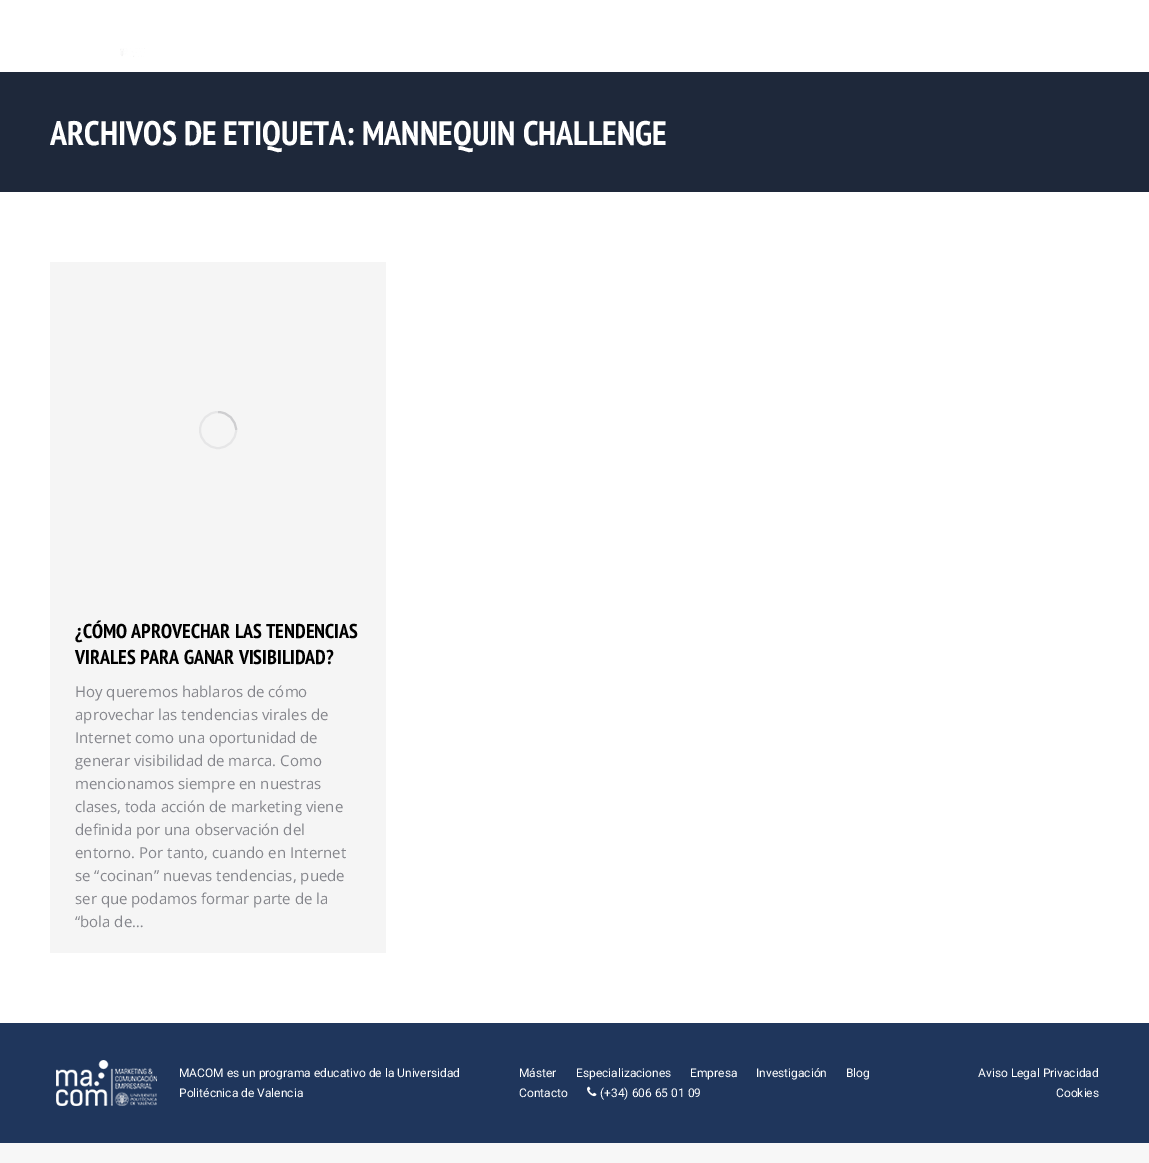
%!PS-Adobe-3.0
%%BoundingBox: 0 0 1149 1163
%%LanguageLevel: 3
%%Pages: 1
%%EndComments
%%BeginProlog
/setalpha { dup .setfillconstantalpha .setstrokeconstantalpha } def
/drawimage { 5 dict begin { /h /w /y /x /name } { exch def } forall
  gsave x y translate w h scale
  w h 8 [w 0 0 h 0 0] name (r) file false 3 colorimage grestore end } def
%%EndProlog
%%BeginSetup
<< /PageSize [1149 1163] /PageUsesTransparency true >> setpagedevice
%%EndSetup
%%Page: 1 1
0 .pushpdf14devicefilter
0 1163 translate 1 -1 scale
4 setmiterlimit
0.969 setgray
0 0 1149 1163 rectfill
1 setgray
0 192 1149 831 rectfill
0 0 1149 72 rectfill
(images/1.raw) 120 48 25 9 drawimage
0.118 0.157 0.227 setrgbcolor
0 72 1149 120 rectfill
0.961 setgray
50 262 336 691 rectfill
0.902 0.902 0.906 setrgbcolor
2 setlinewidth
newpath 218 430 18 0 360 arc closepath stroke
0.25 setalpha
0.522 0.525 0.549 setrgbcolor
newpath 236 430 moveto 236 420 228 412 218 412 curveto stroke
1 setalpha
0.122 0.212 0.361 setrgbcolor
0 1023 1149 120 rectfill
(images/2.raw) 56 1060 101 46 drawimage
(images/3.raw) 587 1086 10 11 drawimage
/PTSansNarrow-Bold [34 0 0 -34 0 0] selectfont
1 setgray
50 145 moveto (ARCHIVOS DE ETIQUETA: MANNEQUIN CHALLENGE) show
/PTSansNarrow-Bold [20 0 0 -20 0 0] selectfont
0 setgray
75 638 moveto (¿CÓMO APROVECHAR LAS TENDENCIAS) show
75 664 moveto (VIRALES PARA GANAR VISIBILIDAD?) show
/OpenSans-Regular [15 0 0 -15 0 0] selectfont
0.522 0.525 0.549 setrgbcolor
75 697 moveto (Hoy queremos hablaros de cómo) show
75 720 moveto (aprovechar las tendencias virales de) show
75 743 moveto (Internet como una oportunidad de) show
75 766 moveto (generar visibilidad de marca. Como) show
75 789 moveto (mencionamos siempre en nuestras) show
75 812 moveto (clases, toda acción de marketing viene) show
75 835 moveto (definida por una observación del) show
75 858 moveto (entorno. Por tanto, cuando en Internet) show
75 881 moveto (se “cocinan” nuevas tendencias, puede) show
75 904 moveto (ser que podamos formar parte de la) show
75 927 moveto (“bola de…) show
/Roboto-Regular [12 0 0 -12 0 0] selectfont
1 setgray
179 1077 moveto (MACOM es un programa educativo de la Universidad) show
179 1097 moveto (Politécnica de Valencia) show
519 1077 moveto (Máster) show
576 1077 moveto (Especializaciones) show
690 1077 moveto (Empresa) show
756 1077 moveto (Investigación) show
846 1077 moveto (Blog) show
519 1097 moveto (Contacto) show
600 1097 moveto (\(+34\) 606 65 01 09) show
978 1077 moveto (Aviso Legal Privacidad) show
1056 1097 moveto (Cookies) show
.poppdf14devicefilter showpage
%%EOF
